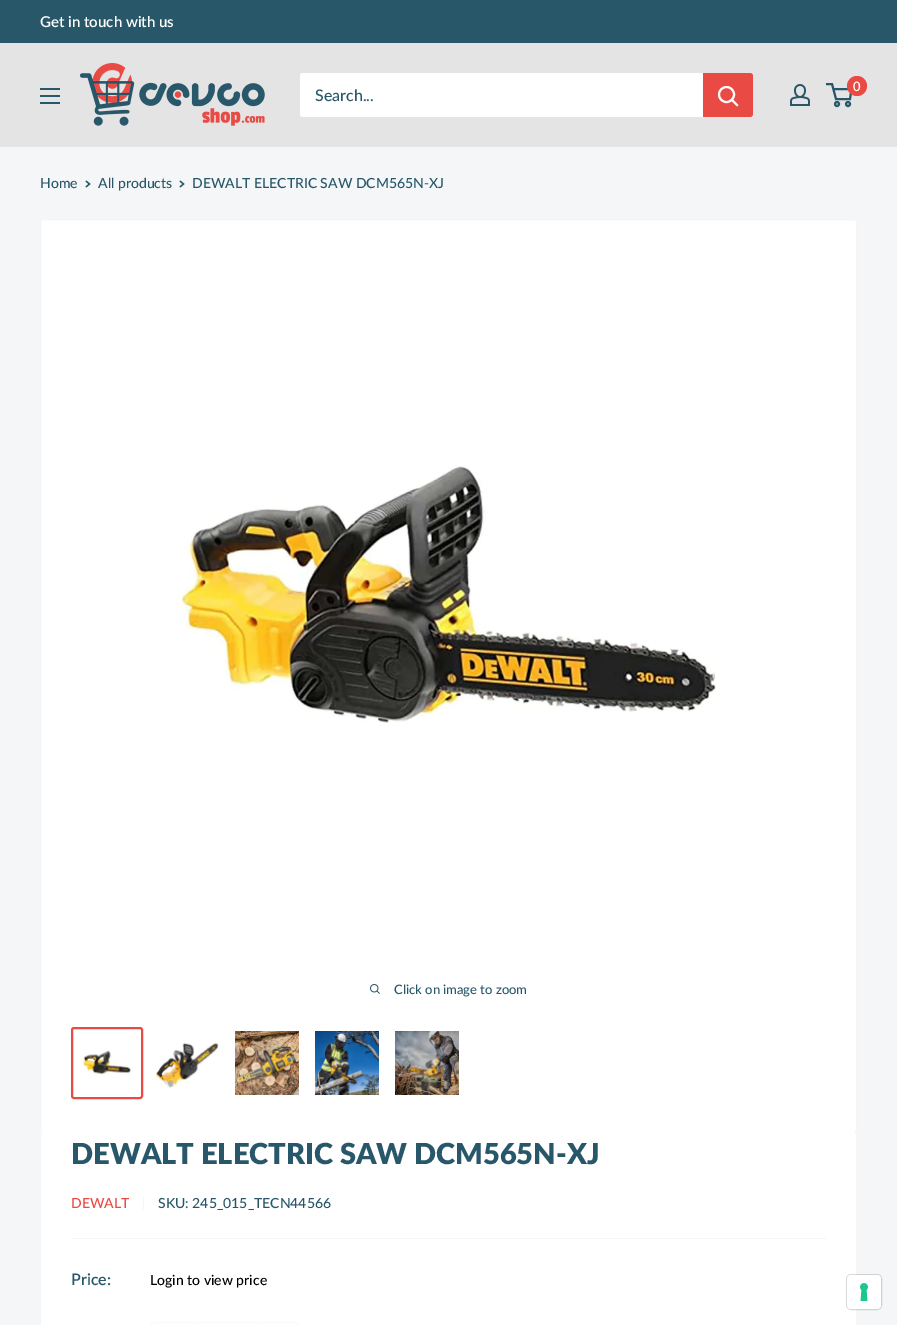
%!PS-Adobe-3.0
%%BoundingBox: 0 0 897 1325
%%LanguageLevel: 3
%%Pages: 1
%%EndComments
%%BeginProlog
/setalpha { dup .setfillconstantalpha .setstrokeconstantalpha } def
/rrect { 5 dict begin { /r /h /w /y /x } { exch def } forall
  x r add y moveto x w add y 2 copy h add r arct x w add y h add x 1 index r arct
  x y h add x y r arct x y 2 copy exch w add exch r arct closepath end } def
/drawimage { 5 dict begin { /h /w /y /x /name } { exch def } forall
  gsave x y translate w h scale
  w h 8 [w 0 0 h 0 0] name (r) file false 3 colorimage grestore end } def
%%EndProlog
%%BeginSetup
<< /PageSize [897 1325] /PageUsesTransparency true >> setpagedevice
%%EndSetup
%%Page: 1 1
0 .pushpdf14devicefilter
0 1325 translate 1 -1 scale
4 setmiterlimit
0.957 0.965 0.969 setrgbcolor
0 0 897 1325 rectfill
0.157 0.341 0.416 setrgbcolor
0 0 897 43 rectfill
0.894 setgray
0 43 897 104 rectfill
(images/1.raw) 80 63 185 63 drawimage
(images/2.raw) 790 84 20 22 drawimage
0.157 0.341 0.416 setrgbcolor
2 setlinewidth
newpath 837 104 2 0 360 arc closepath stroke
newpath 848 104 2 0 360 arc closepath stroke
newpath 833.5 89 moveto 851.5 89 lineto 850 99 lineto 836 99 lineto 832 84 lineto 826 84 lineto stroke
0.914 0.29 0.267 setrgbcolor
newpath 857 86 10 0 360 arc closepath fill
(images/3.raw) 40 88 20 16 drawimage
1 setgray
300 73 453 44 3 rrect fill
0.914 0.29 0.267 setrgbcolor
newpath 703 73 moveto 750 73 lineto 751.5 73 753 74.5 753 76 curveto 753 114 lineto 753 115.5 751.5 117 750 117 curveto 703 117 lineto closepath fill
1 setgray
2 setlinecap
newpath 737 105 moveto 732 100 lineto stroke
0 setlinecap
newpath 726.5 94.5 7.5 0 360 arc closepath stroke
0.157 0.341 0.416 setrgbcolor
1.3 setlinewidth
2 setlinecap
newpath 86.5 181.5 moveto 89.5 184 lineto 86.5 186.5 lineto stroke
newpath 180.5 181.5 moveto 183.5 184 lineto 180.5 186.5 lineto stroke
1 setgray
40.5 219.5 816 912 2.5 rrect gsave fill grestore
0.961 setgray
1 setlinewidth
0 setlinecap
stroke
(images/4.raw) 179 465 537 258 drawimage
(images/5.raw) 370 984 10 10 drawimage
0.914 0.29 0.267 setrgbcolor
2 setlinewidth
72 1028 70 70 2 rrect stroke
(images/6.raw) 83 1050 49 25 drawimage
(images/7.raw) 155 1042 64 46 drawimage
(images/8.raw) 235 1031 64 64 drawimage
(images/9.raw) 315 1031 64 64 drawimage
(images/10.raw) 395 1031 64 64 drawimage
1 setgray
newpath 43 1131 moveto 41 1131 40 1133 40 1135 curveto 40 1133 41 1132 43 1132 curveto 854 1132 lineto 856 1132 857 1133 857 1135 curveto 857 1133 856 1131 854 1131 curveto closepath fill
40 1132 817 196 3 rrect fill
0.961 setgray
newpath 43 1132 moveto 854 1132 lineto 856 1132 857 1133 857 1135 curveto 857 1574 lineto 857 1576 856 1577 854 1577 curveto 43 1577 lineto 41 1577 40 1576 40 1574 curveto 40 1135 lineto 40 1133 41 1132 43 1132 curveto closepath 43 1132 moveto 854 1132 lineto 855 1132 856 1133 856 1135 curveto 856 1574 lineto 856 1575 855 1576 854 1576 curveto 43 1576 lineto 42 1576 41 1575 41 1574 curveto 41 1135 lineto 41 1133 42 1132 43 1132 curveto closepath eofill
143 1197 1 13 rectfill
71 1238 755 1 rectfill
0.98 setgray
1 setlinewidth
150.5 1322.5 149 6 2.5 rrect stroke
256 1323 1 2 rectfill
193 1323 1 2 rectfill
0.15 setalpha
0 setgray
846.5 1274.5 35 35 4.5 rrect stroke
1 setalpha
1 setgray
847 1275 34 34 4 rrect fill
(images/11.raw) 860 1283 8 18 drawimage
/Lato-SemiBold [15 0 0 -15 0 0] selectfont
40 27 moveto (Get in touch with us) show
/Lato-SemiBold [13 0 0 -13 0 0] selectfont
853 91 moveto (0) show
/Lato-Medium [16 0 0 -16 0 0] selectfont
0.157 0.341 0.416 setrgbcolor
315 101 moveto (Search...) show
/Lato-Medium [14 0 0 -14 0 0] selectfont
40 188 moveto (Home) show
98 188 moveto (All products) show
192 188 moveto (DEWALT ELECTRIC SAW DCM565N-XJ) show
/Lato-Medium [13 0 0 -13 0 0] selectfont
394 994 moveto (Click on image to zoom) show
/Lato-ExtraBold [29 0 0 -29 0 0] selectfont
71 1164 moveto (DEWALT ELECTRIC SAW DCM565N-XJ) show
/Lato-Medium [14 0 0 -14 0 0] selectfont
0.914 0.29 0.267 setrgbcolor
71 1208 moveto (DEWALT) show
0.157 0.341 0.416 setrgbcolor
158 1208 moveto (SKU: 245_015_TECN44566) show
/Lato-SemiBold [16 0 0 -16 0 0] selectfont
71 1285 moveto (Price:) show
/Lato-Medium [14 0 0 -14 0 0] selectfont
0 setgray
150 1285 moveto (Login to view price) show
.poppdf14devicefilter showpage
%%EOF
